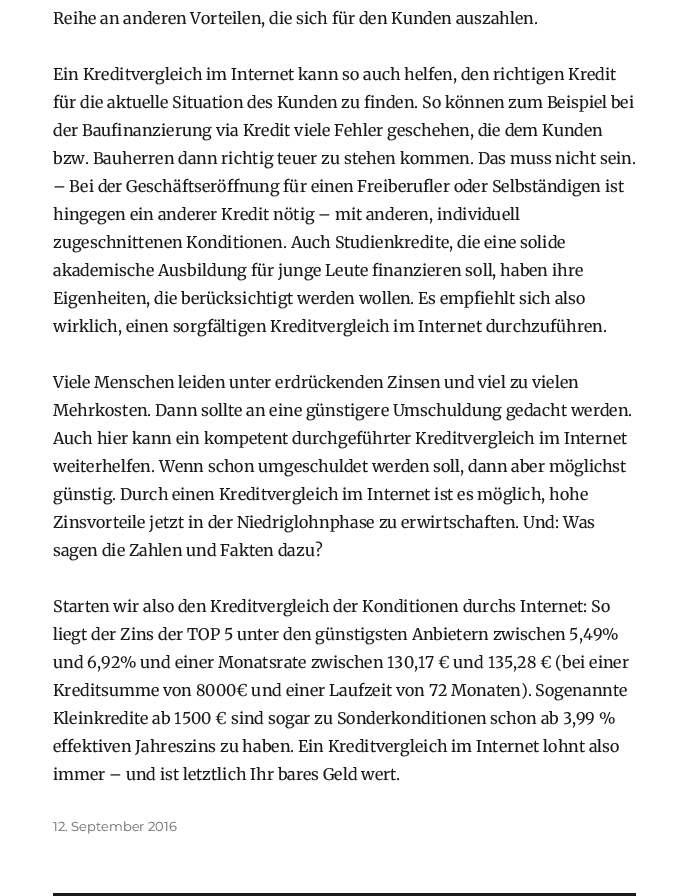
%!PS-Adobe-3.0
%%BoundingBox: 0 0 689 896
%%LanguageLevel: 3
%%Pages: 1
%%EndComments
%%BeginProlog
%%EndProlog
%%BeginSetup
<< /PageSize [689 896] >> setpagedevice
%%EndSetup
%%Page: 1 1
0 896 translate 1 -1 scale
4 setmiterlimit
1 setgray
0 0 689 896 rectfill
0.102 setgray
53 893 583 3 rectfill
/Merriweather-Regular [16 0 0 -16 0 0] selectfont
53 24 moveto (Reihe an anderen Vorteilen, die sich für den Kunden auszahlen.) show
53 80 moveto (Ein Kreditvergleich im Internet kann so auch helfen, den richtigen Kredit) show
53 108 moveto (für die aktuelle Situation des Kunden zu finden. So können zum Beispiel bei) show
53 136 moveto (der Baufinanzierung via Kredit viele Fehler geschehen, die dem Kunden) show
53 164 moveto (bzw. Bauherren dann richtig teuer zu stehen kommen. Das muss nicht sein.) show
53 192 moveto (– Bei der Geschäftseröffnung für einen Freiberufler oder Selbständigen ist) show
53 220 moveto (hingegen ein anderer Kredit nötig – mit anderen, individuell) show
53 248 moveto (zugeschnittenen Konditionen. Auch Studienkredite, die eine solide) show
53 276 moveto (akademische Ausbildung für junge Leute finanzieren soll, haben ihre) show
53 304 moveto (Eigenheiten, die berücksichtigt werden wollen. Es empfiehlt sich also) show
53 332 moveto (wirklich, einen sorgfältigen Kreditvergleich im Internet durchzuführen.) show
53 388 moveto (Viele Menschen leiden unter erdrückenden Zinsen und viel zu vielen) show
53 416 moveto (Mehrkosten. Dann sollte an eine günstigere Umschuldung gedacht werden.) show
53 444 moveto (Auch hier kann ein kompetent durchgeführter Kreditvergleich im Internet) show
53 472 moveto (weiterhelfen. Wenn schon umgeschuldet werden soll, dann aber möglichst) show
53 500 moveto (günstig. Durch einen Kreditvergleich im Internet ist es möglich, hohe) show
53 528 moveto (Zinsvorteile jetzt in der Niedriglohnphase zu erwirtschaften. Und: Was) show
53 556 moveto (sagen die Zahlen und Fakten dazu?) show
53 612 moveto (Starten wir also den Kreditvergleich der Konditionen durchs Internet: So) show
53 640 moveto (liegt der Zins der TOP 5 unter den günstigsten Anbietern zwischen 5,49%) show
53 668 moveto (und 6,92% und einer Monatsrate zwischen 130,17 € und 135,28 € \(bei einer) show
53 696 moveto (Kreditsumme von 8000€ und einer Laufzeit von 72 Monaten\). Sogenannte) show
53 724 moveto (Kleinkredite ab 1500 € sind sogar zu Sonderkonditionen schon ab 3,99 %) show
53 752 moveto (effektiven Jahreszins zu haben. Ein Kreditvergleich im Internet lohnt also) show
53 780 moveto (immer – und ist letztlich Ihr bares Geld wert.) show
/Montserrat-Regular [13 0 0 -13 0 0] selectfont
0.408 setgray
53 831 moveto (12. September 2016) show
showpage
%%EOF
